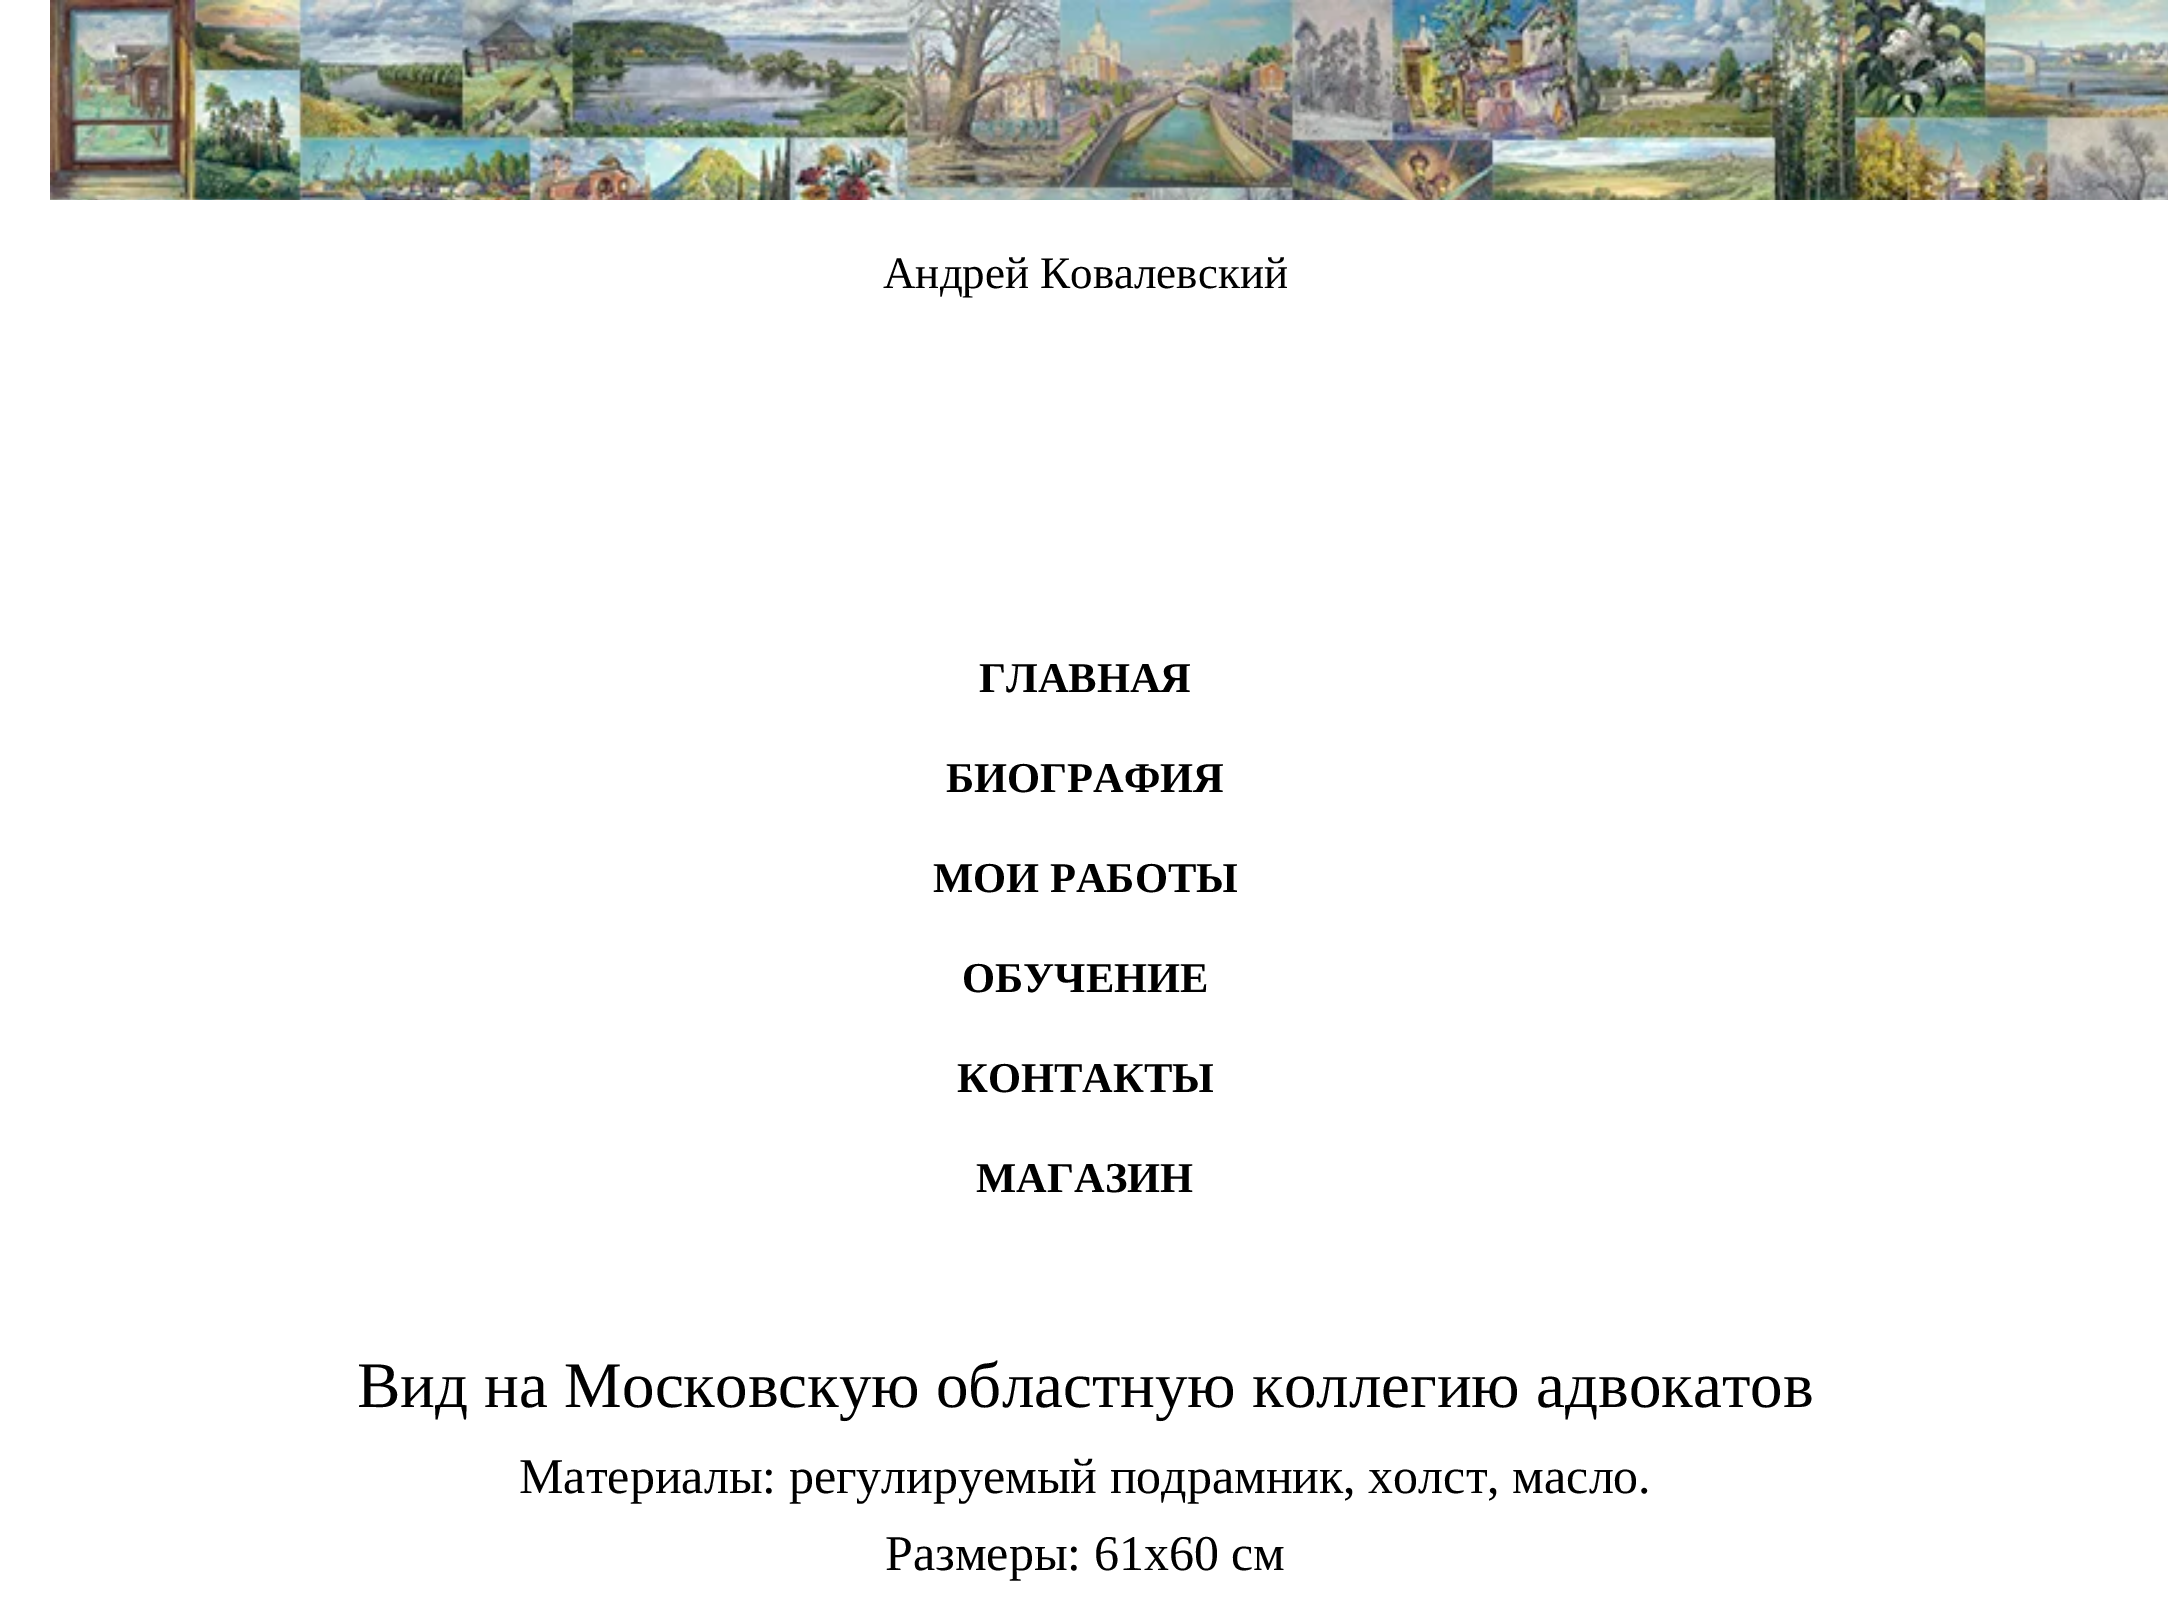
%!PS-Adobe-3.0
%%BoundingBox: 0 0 2168 1617
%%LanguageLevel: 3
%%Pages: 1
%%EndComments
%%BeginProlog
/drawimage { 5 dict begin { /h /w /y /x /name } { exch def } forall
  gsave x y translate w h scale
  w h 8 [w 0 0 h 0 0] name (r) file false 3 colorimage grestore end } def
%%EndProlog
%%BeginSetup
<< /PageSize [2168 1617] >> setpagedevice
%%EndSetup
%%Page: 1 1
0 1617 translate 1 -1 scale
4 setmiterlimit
1 setgray
0 0 2168 1617 rectfill
(images/1.raw) 50 0 2118 200 drawimage
/LiberationSerif-Regular [45 0 0 -45 0 0] selectfont
0 setgray
883 288 moveto (Андрей Ковалевский) show
/LiberationSerif-Bold [42.5 0 0 -42.5 0 0] selectfont
979 692 moveto (ГЛАВНАЯ) show
946 792 moveto (БИОГРАФИЯ) show
933 892 moveto (МОИ РАБОТЫ) show
962 992 moveto (ОБУЧЕНИЕ) show
957 1092 moveto (КОНТАКТЫ) show
976 1192 moveto (МАГАЗИН) show
/LiberationSerif-Regular [65 0 0 -65 0 0] selectfont
357 1407 moveto (Вид на Московскую областную коллегию адвокатов) show
/LiberationSerif-Regular [50 0 0 -50 0 0] selectfont
519 1493 moveto (Материалы: регулируемый подрамник, холст, масло.) show
885 1570 moveto (Размеры: 61х60 см) show
showpage
%%EOF
